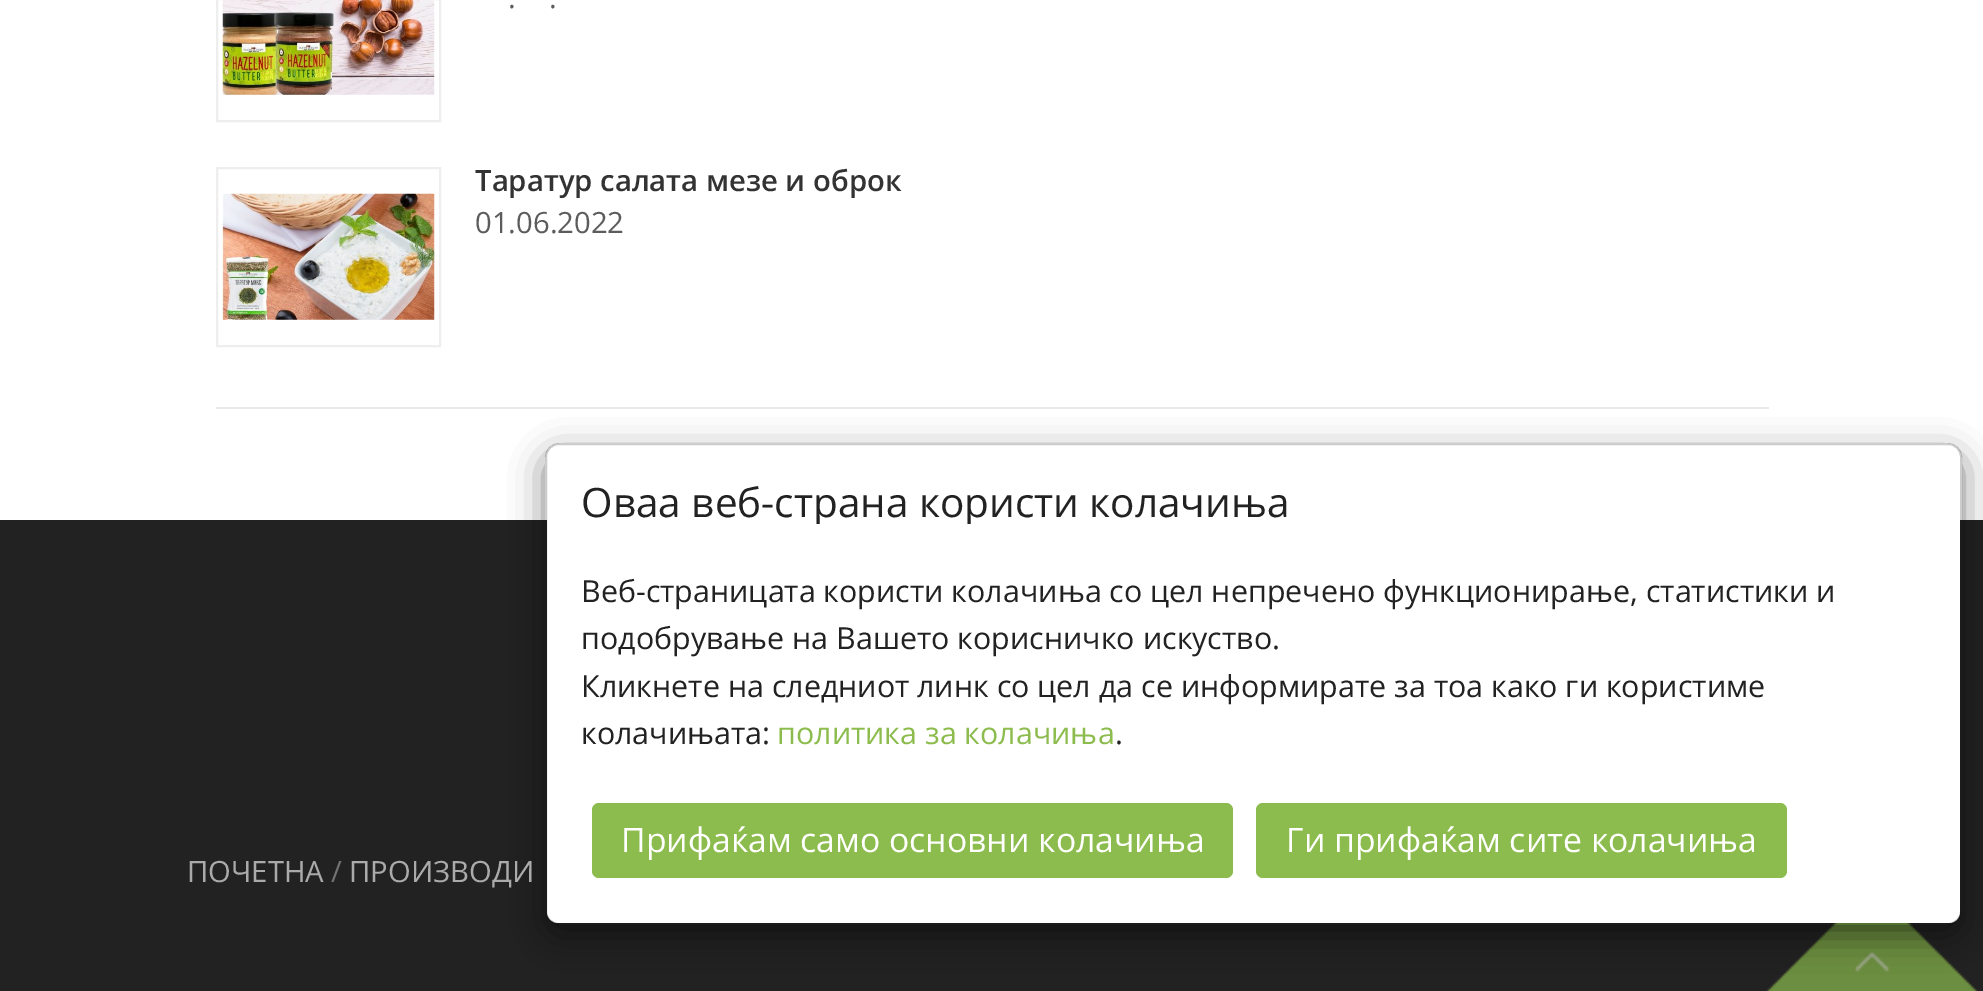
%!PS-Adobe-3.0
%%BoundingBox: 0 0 1983 991
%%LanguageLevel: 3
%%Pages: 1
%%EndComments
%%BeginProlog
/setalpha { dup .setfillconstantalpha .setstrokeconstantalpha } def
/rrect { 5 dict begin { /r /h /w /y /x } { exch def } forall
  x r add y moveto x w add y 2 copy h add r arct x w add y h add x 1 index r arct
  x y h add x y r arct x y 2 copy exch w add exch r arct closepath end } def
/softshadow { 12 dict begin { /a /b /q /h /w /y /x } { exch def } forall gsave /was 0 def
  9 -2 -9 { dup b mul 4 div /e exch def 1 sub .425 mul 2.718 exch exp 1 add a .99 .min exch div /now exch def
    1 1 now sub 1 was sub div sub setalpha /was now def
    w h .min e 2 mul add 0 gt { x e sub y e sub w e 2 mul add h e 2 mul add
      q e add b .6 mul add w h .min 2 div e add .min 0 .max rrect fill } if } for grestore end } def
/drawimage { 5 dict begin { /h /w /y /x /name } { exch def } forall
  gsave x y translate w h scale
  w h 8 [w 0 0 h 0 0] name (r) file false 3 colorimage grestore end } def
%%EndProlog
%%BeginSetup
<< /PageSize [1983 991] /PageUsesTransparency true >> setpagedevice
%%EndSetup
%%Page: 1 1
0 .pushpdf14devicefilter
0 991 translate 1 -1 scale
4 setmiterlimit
1 setgray
0 0 1983 991 rectfill
0.933 setgray
2 setlinewidth
217 -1 223 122 rectstroke
(images/1.raw) 222 0 213 95 drawimage
217 168 223 178 rectstroke
(images/2.raw) 222 193 213 127 drawimage
0.914 setgray
216 407 1553 2 rectfill
0.133 setgray
0 520 1983 471 rectfill
(images/3.raw) 1766 923 212 68 drawimage
gsave
newpath 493 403 moveto 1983 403 lineto 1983 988 lineto 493 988 lineto closepath 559 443 moveto 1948 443 lineto 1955.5 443 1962 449.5 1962 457 curveto 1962 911 lineto 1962 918.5 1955.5 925 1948 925 curveto 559 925 lineto 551.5 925 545 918.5 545 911 curveto 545 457 lineto 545 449.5 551.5 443 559 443 curveto closepath eoclip newpath
0 setgray
545 455 1417 481 14 17 0.5 softshadow
grestore
1 setgray
547 446 1413 477 11 rrect fill
0.2 setalpha
0 setgray
546 444 1415 480 13 rrect stroke
1 setalpha
0.549 0.737 0.306 setrgbcolor
592 803 641 75 7 rrect fill
1256 803 531 75 7 rrect fill
/OpenSans-Regular [29.25 0 0 -29.25 0 0] selectfont
0.361 setgray
508 8 moveto (.) show
549 8 moveto (.) show
/OpenSans-SemiBold [29.25 0 0 -29.25 0 0] selectfont
0.2 setgray
475 191 moveto (Tаратур салата мезе и оброк) show
/OpenSans-Regular [29.25 0 0 -29.25 0 0] selectfont
0.361 setgray
475 233 moveto (01.06.2022) show
gsave
581 479 1345 45 rectclip
/OpenSans-Regular [40.5 0 0 -40.5 0 0] selectfont
0.133 setgray
581 517 moveto (Оваа веб-страна користи колачиња) show
grestore
/OpenSans-Regular [30.4 0 0 -30.4 0 0] selectfont
0.133 setgray
581 602 moveto (Веб-страницата користи колачиња со цел непречено функционирање, статистики и) show
581 649 moveto (подобрување на Вашето корисничко искуство.) show
581 697 moveto (Кликнете на следниот линк со цел да се информирате за тоа како ги користиме) show
581 744 moveto (колачињата:) show
0.549 0.737 0.306 setrgbcolor
777 744 moveto (политика за колачиња) show
0.133 setgray
1115 744 moveto (.) show
/OpenSans-Regular [33.75 0 0 -33.75 0 0] selectfont
1 setgray
621 852 moveto (Прифаќам само основни колачиња) show
1286 852 moveto (Ги прифаќам сите колачиња) show
/OpenSans-Regular [29.25 0 0 -29.25 0 0] selectfont
0.667 setgray
187 882 moveto (ПОЧЕТНА) show
0.447 setgray
331 882 moveto (/) show
0.667 setgray
349 882 moveto (ПРОИЗВОДИ) show
.poppdf14devicefilter showpage
%%EOF
